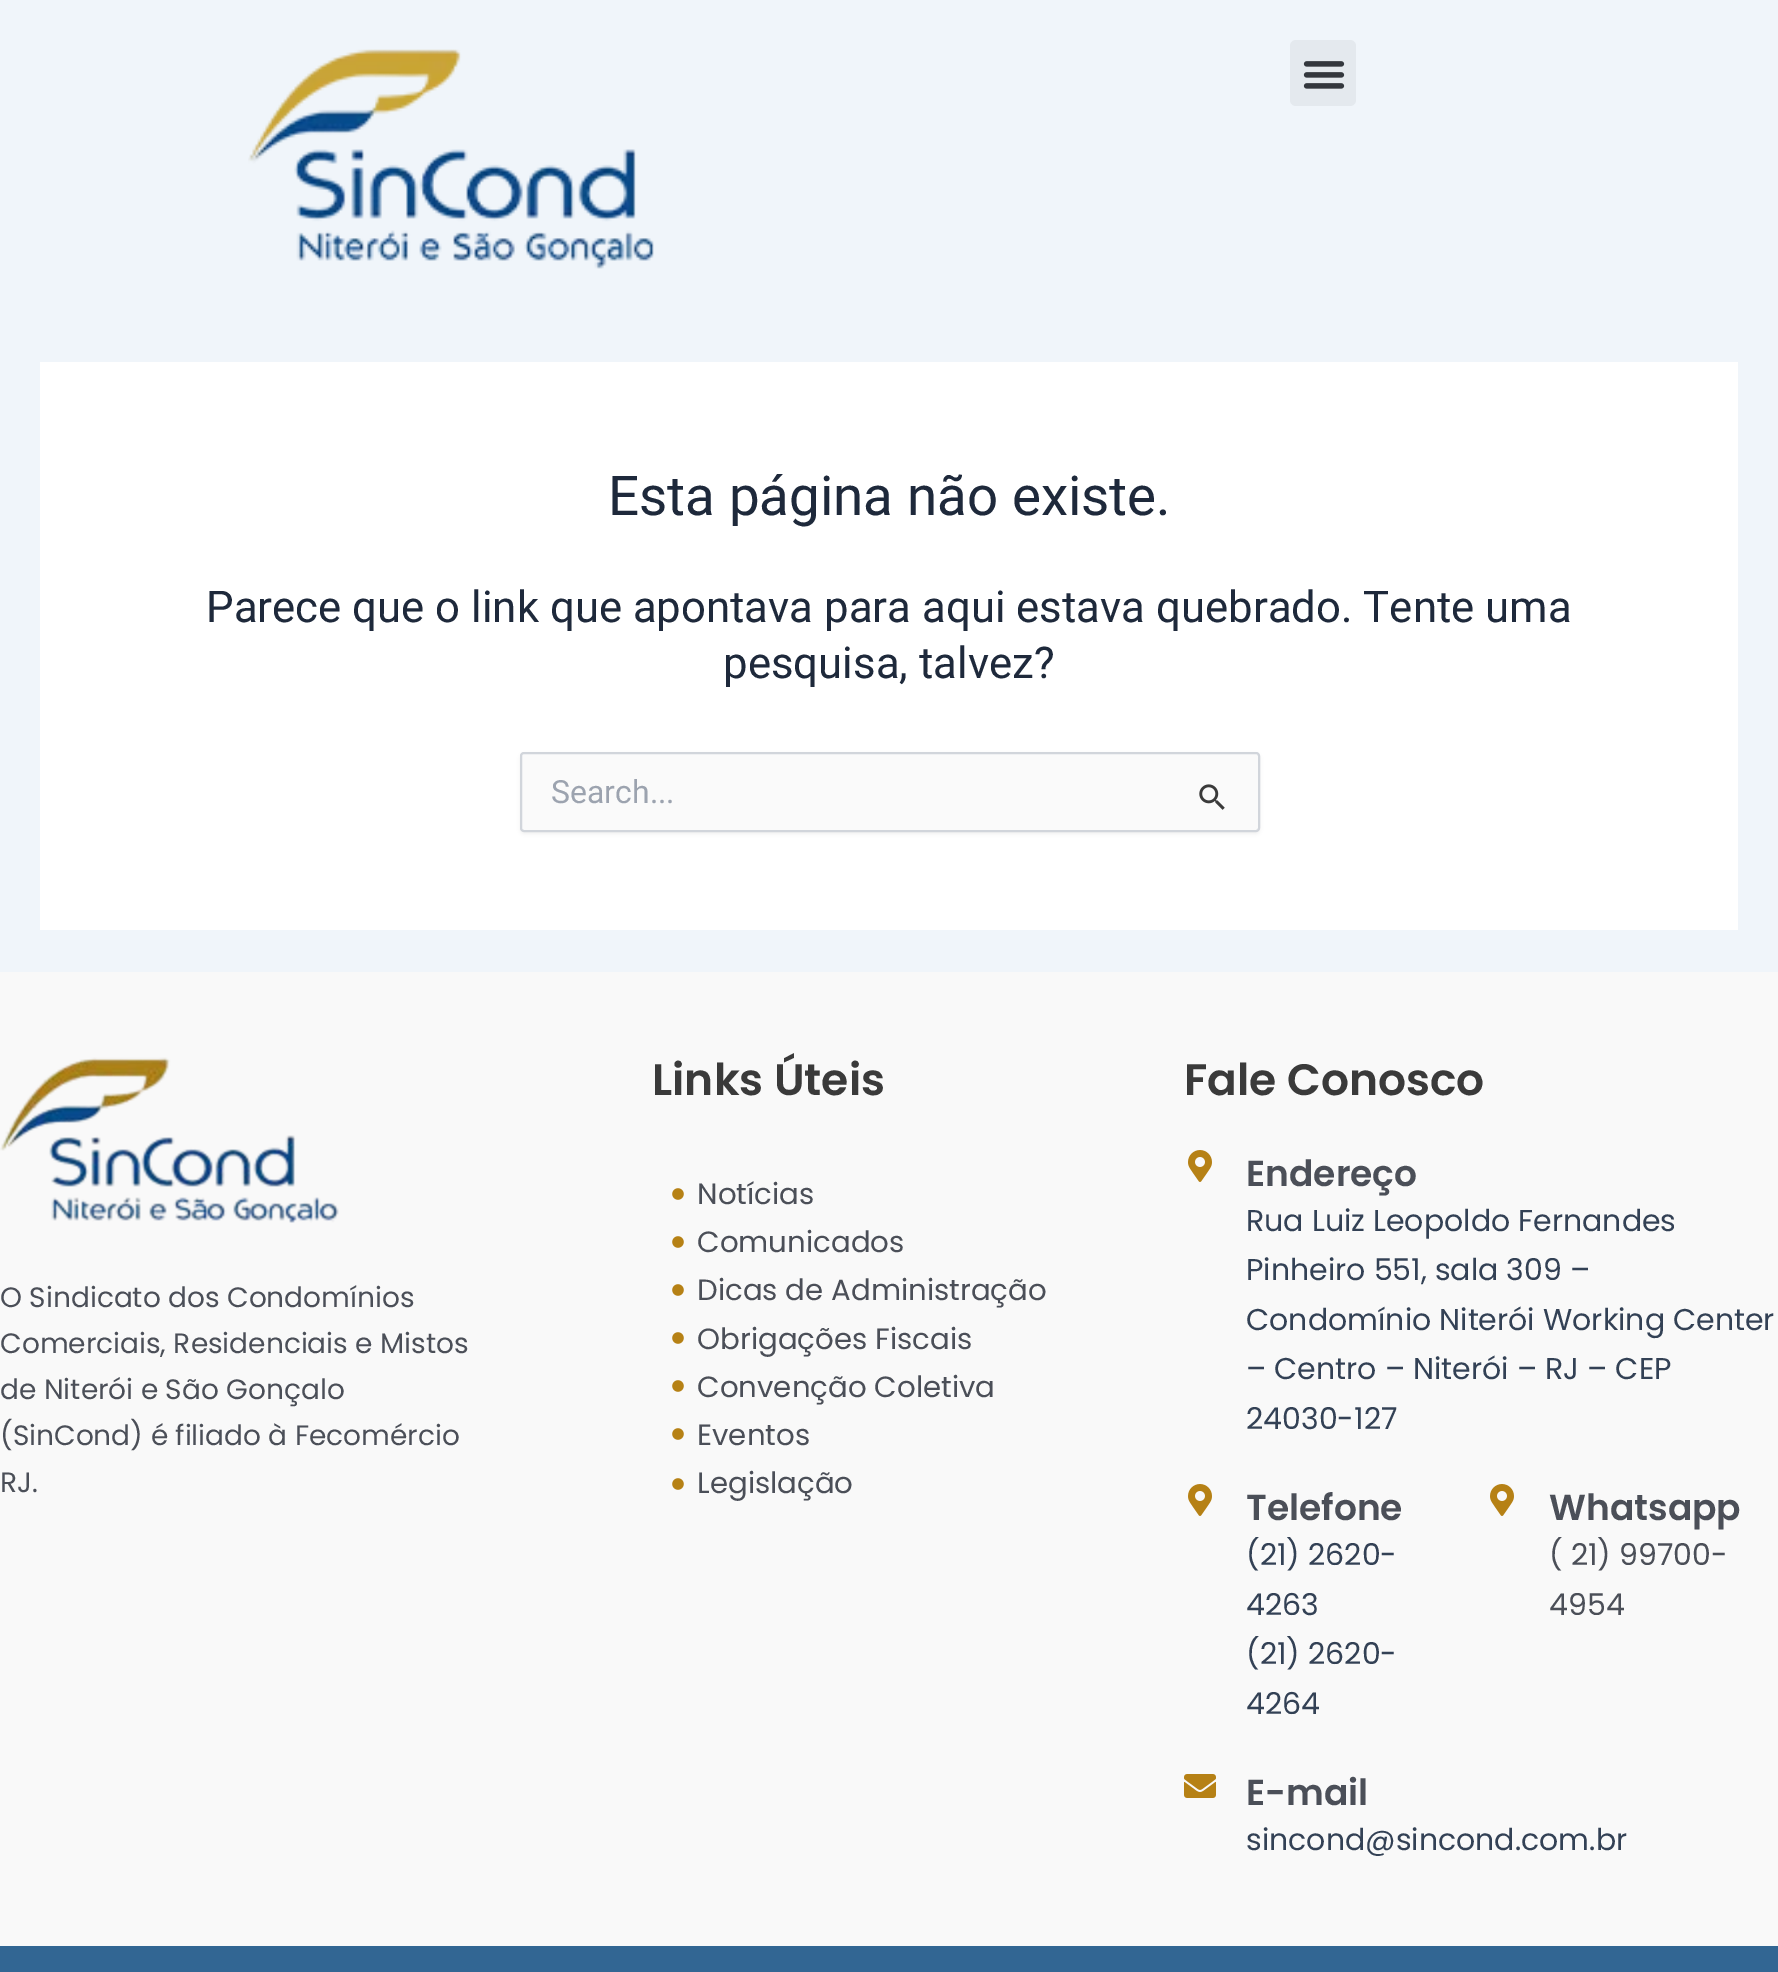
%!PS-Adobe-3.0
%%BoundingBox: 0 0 1778 1972
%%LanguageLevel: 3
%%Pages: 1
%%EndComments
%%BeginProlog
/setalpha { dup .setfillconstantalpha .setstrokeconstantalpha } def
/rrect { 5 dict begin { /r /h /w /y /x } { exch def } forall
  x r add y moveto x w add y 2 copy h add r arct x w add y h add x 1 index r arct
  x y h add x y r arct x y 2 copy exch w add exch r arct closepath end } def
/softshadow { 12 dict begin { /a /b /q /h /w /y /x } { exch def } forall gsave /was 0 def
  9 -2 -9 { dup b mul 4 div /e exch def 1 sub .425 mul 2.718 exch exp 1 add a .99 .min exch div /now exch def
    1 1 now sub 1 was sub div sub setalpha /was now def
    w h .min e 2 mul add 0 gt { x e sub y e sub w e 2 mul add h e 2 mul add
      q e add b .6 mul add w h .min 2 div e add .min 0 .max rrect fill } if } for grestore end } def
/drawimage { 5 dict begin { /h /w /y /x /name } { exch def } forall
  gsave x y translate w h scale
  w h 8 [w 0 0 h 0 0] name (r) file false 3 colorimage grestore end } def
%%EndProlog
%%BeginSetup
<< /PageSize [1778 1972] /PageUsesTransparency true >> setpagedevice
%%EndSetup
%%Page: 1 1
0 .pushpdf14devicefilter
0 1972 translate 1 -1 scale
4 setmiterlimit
0.941 0.961 0.98 setrgbcolor
0 0 1778 1972 rectfill
(images/1.raw) 248 49 406 220 drawimage
0.894 0.914 0.933 setrgbcolor
1290 40 66 66 6 rrect fill
(images/2.raw) 1303 61 42 28 drawimage
1 setgray
40 362 1698 568 rectfill
0 setgray
520 754 740 80 4 2 0.05 softshadow
0.98 setgray
521 753 738 78 3 rrect gsave fill grestore
0.82 0.835 0.859 setrgbcolor
2 setlinewidth
stroke
(images/3.raw) 1199 784 26 26 drawimage
0.976 setgray
0 972 1778 974 rectfill
(images/4.raw) 0 1057 339 166 drawimage
(images/5.raw) 672 1188 12 12 drawimage
(images/5.raw) 672 1236 12 12 drawimage
(images/5.raw) 672 1284 12 12 drawimage
(images/5.raw) 672 1332 12 12 drawimage
(images/5.raw) 672 1380 12 12 drawimage
(images/5.raw) 672 1428 12 12 drawimage
(images/5.raw) 672 1478 12 12 drawimage
(images/6.raw) 1188 1150 24 32 drawimage
(images/6.raw) 1188 1484 24 32 drawimage
(images/6.raw) 1490 1484 24 32 drawimage
(images/7.raw) 1184 1774 32 24 drawimage
0.196 0.4 0.576 setrgbcolor
0 1946 1778 26 rectfill
/Roboto-Regular [54.75 0 0 -54.75 0 0] selectfont
0.118 0.161 0.231 setrgbcolor
608 515 moveto (Esta página não existe.) show
/Roboto-Regular [43.75 0 0 -43.75 0 0] selectfont
206 622 moveto (Parece que o link que apontava para aqui estava quebrado. Tente uma) show
723 678 moveto (pesquisa, talvez?) show
/Roboto-Regular [32 0 0 -32 0 0] selectfont
0.612 0.639 0.686 setrgbcolor
551 803 moveto (Search...) show
/Poppins-Regular [28 0 0 -28 0 0] selectfont
0.294 0.31 0.345 setrgbcolor
0 1307 moveto (O Sindicato dos Condomínios) show
0 1353 moveto (Comerciais, Residenciais e Mistos) show
0 1399 moveto (de Niterói e São Gonçalo) show
0 1445 moveto (\(SinCond\) é filiado à Fecomércio) show
0 1492 moveto (RJ.) show
/Poppins-SemiBold [44 0 0 -44 0 0] selectfont
0.227 setgray
652 1095 moveto (Links Úteis) show
/Poppins-Regular [29.25 0 0 -29.25 0 0] selectfont
0.294 0.31 0.345 setrgbcolor
697 1204 moveto (Notícias) show
697 1252 moveto (Comunicados) show
697 1300 moveto (Dicas de Administração) show
697 1349 moveto (Obrigações Fiscais) show
697 1397 moveto (Convenção Coletiva) show
697 1445 moveto (Eventos) show
697 1493 moveto (Legislação) show
/Poppins-SemiBold [44 0 0 -44 0 0] selectfont
0.227 setgray
1184 1095 moveto (Fale Conosco) show
/Poppins-SemiBold [36 0 0 -36 0 0] selectfont
0.294 0.31 0.345 setrgbcolor
1246 1186 moveto (Endereço) show
/Poppins-Regular [30 0 0 -30 0 0] selectfont
0.2 0.255 0.333 setrgbcolor
1246 1231 moveto (Rua Luiz Leopoldo Fernandes) show
1246 1280 moveto (Pinheiro 551, sala 309 –) show
1246 1330 moveto (Condomínio Niterói Working Center) show
1246 1379 moveto (– Centro – Niterói – RJ – CEP) show
1246 1429 moveto (24030-127) show
/Poppins-SemiBold [36 0 0 -36 0 0] selectfont
0.294 0.31 0.345 setrgbcolor
1246 1520 moveto (Telefone) show
/Poppins-Regular [30 0 0 -30 0 0] selectfont
0.2 0.255 0.333 setrgbcolor
1246 1565 moveto (\(21\) 2620-) show
1246 1615 moveto (4263) show
1246 1664 moveto (\(21\) 2620-) show
1246 1714 moveto (4264) show
/Poppins-SemiBold [36 0 0 -36 0 0] selectfont
0.294 0.31 0.345 setrgbcolor
1549 1520 moveto (Whatsapp) show
/Poppins-Regular [30 0 0 -30 0 0] selectfont
1549 1565 moveto (\( 21\) 99700-) show
1549 1615 moveto (4954) show
/Poppins-SemiBold [36 0 0 -36 0 0] selectfont
1246 1805 moveto (E-mail) show
/Poppins-Regular [30 0 0 -30 0 0] selectfont
0.2 0.255 0.333 setrgbcolor
1246 1850 moveto (sincond@sincond.com.br) show
.poppdf14devicefilter showpage
%%EOF
